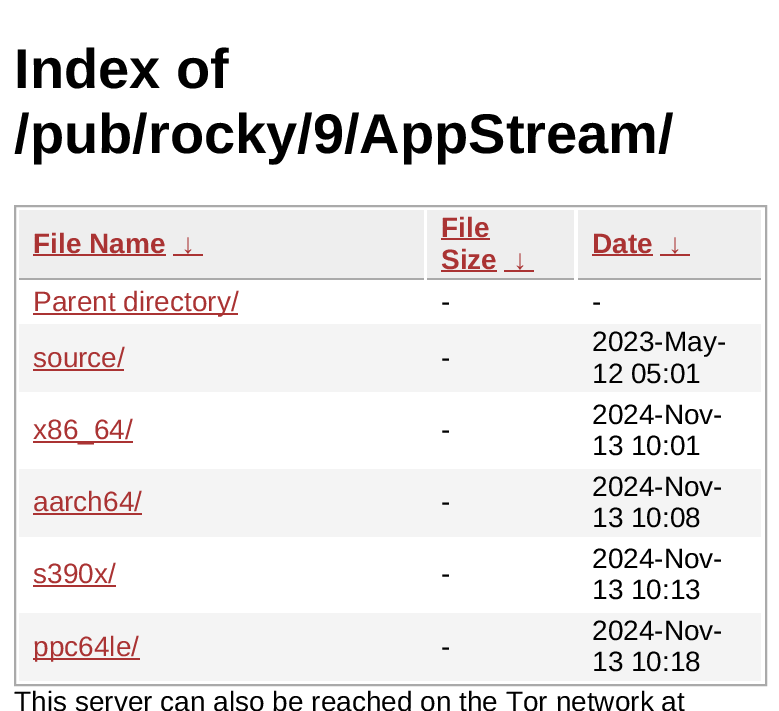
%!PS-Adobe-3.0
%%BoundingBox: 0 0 779 711
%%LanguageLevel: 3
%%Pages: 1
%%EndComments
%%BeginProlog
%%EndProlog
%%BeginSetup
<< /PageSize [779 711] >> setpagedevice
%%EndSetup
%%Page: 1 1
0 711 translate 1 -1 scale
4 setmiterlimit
1 setgray
0 0 779 711 rectfill
0.667 setgray
2 setlinewidth
15 206 751 479 rectstroke
0.933 setgray
19 210 405 68 rectfill
0.667 setgray
19 278 405 2 rectfill
0.667 0.2 0.2 setrgbcolor
33 254 133 2 rectfill
173 254 30 2 rectfill
0.933 setgray
427 210 147 68 rectfill
0.667 setgray
427 278 147 2 rectfill
0.667 0.2 0.2 setrgbcolor
441 238 49 2 rectfill
441 270 56 2 rectfill
504 270 30 2 rectfill
0.933 setgray
578 210 183 68 rectfill
0.667 setgray
578 278 183 2 rectfill
0.667 0.2 0.2 setrgbcolor
592 254 61 2 rectfill
660 254 30 2 rectfill
33 313 205 2 rectfill
0.957 setgray
19 324 742 68 rectfill
0.667 0.2 0.2 setrgbcolor
33 369 91 2 rectfill
33 441 100 2 rectfill
0.957 setgray
19 469 742 68 rectfill
0.667 0.2 0.2 setrgbcolor
33 513 109 2 rectfill
33 585 83 2 rectfill
0.957 setgray
19 613 742 68 rectfill
0.667 0.2 0.2 setrgbcolor
33 658 107 2 rectfill
/LiberationSans-Bold [56 0 0 -56 0 0] selectfont
0 setgray
14 88 moveto (Index of) show
14 153 moveto (/pub/rocky/9/AppStream/) show
/LiberationSans-Bold [28 0 0 -28 0 0] selectfont
0.667 0.2 0.2 setrgbcolor
33 253 moveto (File Name) show
181 253 moveto (↓) show
441 237 moveto (File) show
441 269 moveto (Size) show
513 269 moveto (↓) show
592 253 moveto (Date) show
668 253 moveto (↓) show
/LiberationSans-Regular [28 0 0 -28 0 0] selectfont
33 311 moveto (Parent directory/) show
0 setgray
441 311 moveto (-) show
592 311 moveto (-) show
0.667 0.2 0.2 setrgbcolor
33 367 moveto (source/) show
0 setgray
441 367 moveto (-) show
592 351 moveto (2023-May-) show
592 383 moveto (12 05:01) show
0.667 0.2 0.2 setrgbcolor
33 439 moveto (x86_64/) show
0 setgray
441 439 moveto (-) show
592 424 moveto (2024-Nov-) show
592 455 moveto (13 10:01) show
0.667 0.2 0.2 setrgbcolor
33 511 moveto (aarch64/) show
0 setgray
441 511 moveto (-) show
592 496 moveto (2024-Nov-) show
592 527 moveto (13 10:08) show
0.667 0.2 0.2 setrgbcolor
33 583 moveto (s390x/) show
0 setgray
441 583 moveto (-) show
592 568 moveto (2024-Nov-) show
592 599 moveto (13 10:13) show
0.667 0.2 0.2 setrgbcolor
33 656 moveto (ppc64le/) show
0 setgray
441 656 moveto (-) show
592 640 moveto (2024-Nov-) show
592 671 moveto (13 10:18) show
14 711 moveto (This server can also be reached on the Tor network at) show
showpage
%%EOF
